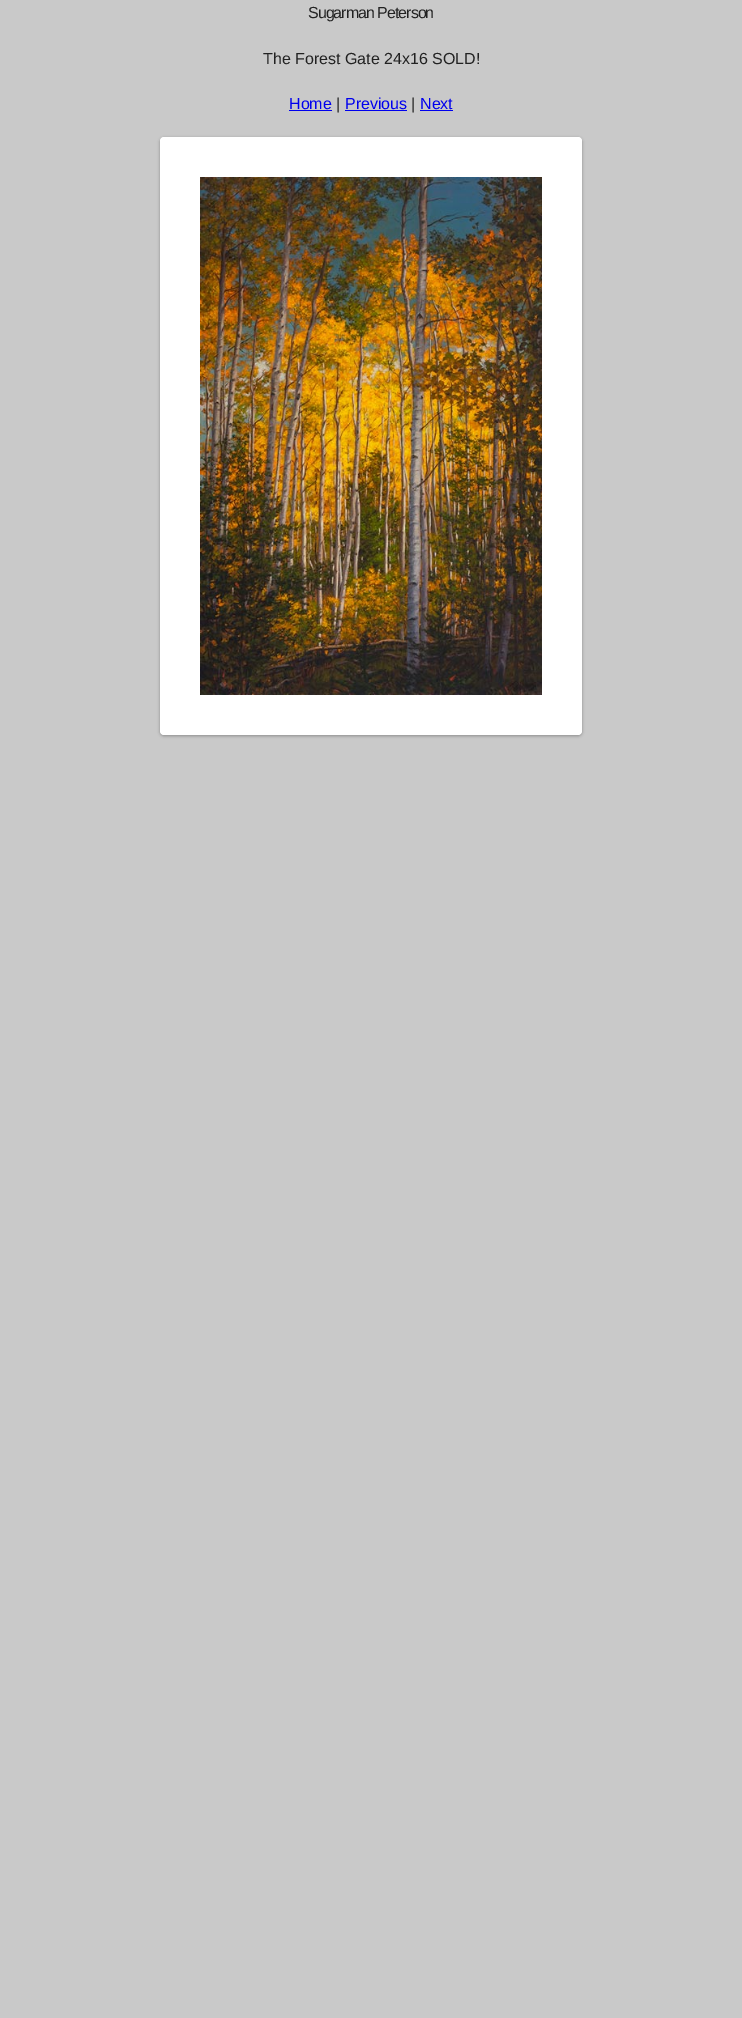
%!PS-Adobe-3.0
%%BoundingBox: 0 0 742 2018
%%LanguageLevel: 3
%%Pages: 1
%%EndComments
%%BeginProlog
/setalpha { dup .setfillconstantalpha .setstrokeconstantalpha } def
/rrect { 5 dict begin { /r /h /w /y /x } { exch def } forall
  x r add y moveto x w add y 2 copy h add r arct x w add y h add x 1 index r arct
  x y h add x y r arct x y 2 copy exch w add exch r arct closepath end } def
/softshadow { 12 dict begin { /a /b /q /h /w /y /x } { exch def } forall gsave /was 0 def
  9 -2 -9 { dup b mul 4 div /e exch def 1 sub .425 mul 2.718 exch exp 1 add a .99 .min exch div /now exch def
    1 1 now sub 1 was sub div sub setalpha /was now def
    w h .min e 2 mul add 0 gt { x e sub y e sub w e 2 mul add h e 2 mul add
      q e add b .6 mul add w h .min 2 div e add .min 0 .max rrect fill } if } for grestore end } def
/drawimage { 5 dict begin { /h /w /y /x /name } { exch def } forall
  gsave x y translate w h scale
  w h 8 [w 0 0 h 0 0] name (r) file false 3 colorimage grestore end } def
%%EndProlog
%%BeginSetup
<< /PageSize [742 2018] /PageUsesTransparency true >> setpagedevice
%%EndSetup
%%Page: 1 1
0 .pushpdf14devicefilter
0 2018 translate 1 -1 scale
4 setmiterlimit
0.788 setgray
0 0 742 2018 rectfill
0 0 0.933 setrgbcolor
289 110 43 1 rectfill
345 110 62 1 rectfill
420 110 33 1 rectfill
0 setgray
160 138 422 598 4 1.5 0.3 softshadow
1 setgray
160 137 422 598 4 rrect fill
(images/1.raw) 200 177 342 518 drawimage
/LiberationSans-Regular [16 0 0 -16 0 0] selectfont
0.133 setgray
308 18 moveto -1 0 (Sugarman Peterson) ashow
263 64 moveto (The Forest Gate 24x16 SOLD!) show
0 0 0.933 setrgbcolor
289 109 moveto (Home) show
0.133 setgray
336 109 moveto (|) show
0 0 0.933 setrgbcolor
345 109 moveto (Previous) show
0.133 setgray
411 109 moveto (|) show
0 0 0.933 setrgbcolor
420 109 moveto (Next) show
.poppdf14devicefilter showpage
%%EOF
